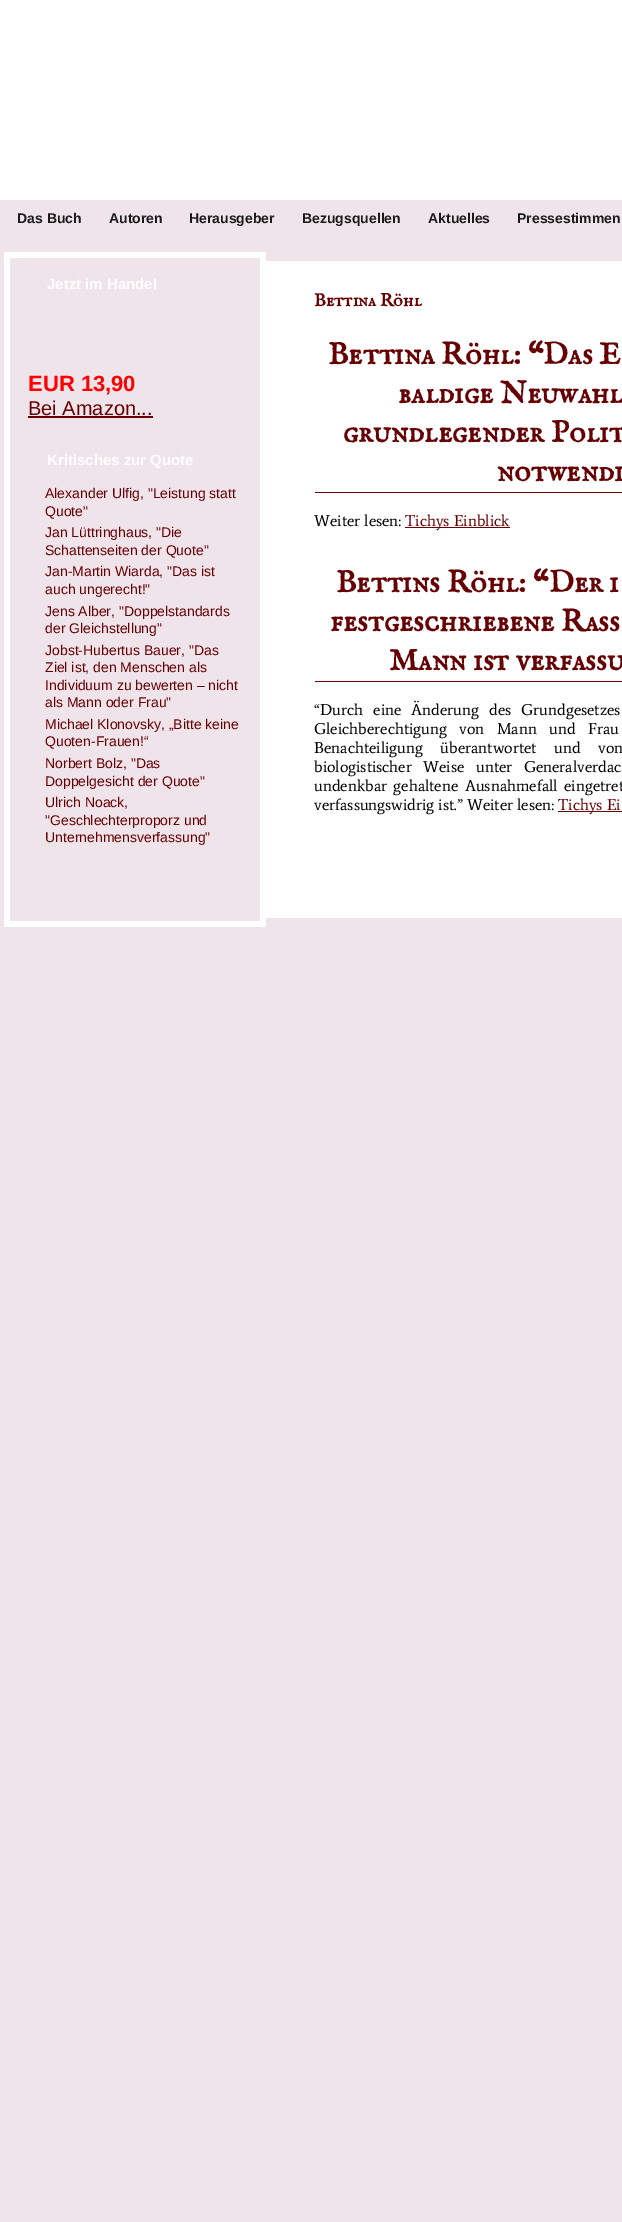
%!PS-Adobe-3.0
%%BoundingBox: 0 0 622 2222
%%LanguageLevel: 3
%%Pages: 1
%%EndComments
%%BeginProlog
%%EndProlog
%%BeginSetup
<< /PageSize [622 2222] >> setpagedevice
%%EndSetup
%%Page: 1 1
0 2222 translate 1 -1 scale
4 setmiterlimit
0.937 0.894 0.918 setrgbcolor
0 0 622 2222 rectfill
1 setgray
0 0 622 200 rectfill
266 261 356 657 rectfill
4 252 262 6 rectfill
260 252 6 675 rectfill
4 921 262 6 rectfill
4 252 6 675 rectfill
0.404 0 0.012 setrgbcolor
28 416 125 2 rectfill
315 492 307 1 rectfill
405 527 105 1 rectfill
315 681 307 1 rectfill
558 811 64 1 rectfill
/LiberationSans-Bold [14 0 0 -14 0 0] selectfont
0.102 setgray
17 223 moveto (Das Buch) show
109 223 moveto (Autoren) show
189 223 moveto (Herausgeber) show
302 223 moveto (Bezugsquellen) show
428 223 moveto (Aktuelles) show
517 223 moveto (Pressestimmen) show
/LiberationSans-Bold [15 0 0 -15 0 0] selectfont
1 setgray
47 289 moveto (Jetzt im Handel) show
/LiberationSans-Bold [22 0 0 -22 0 0] selectfont
1 0 0 setrgbcolor
28 391 moveto (EUR 13,90) show
/LiberationSans-Regular [20 0 0 -20 0 0] selectfont
0.404 0 0.012 setrgbcolor
28 415 moveto (Bei Amazon...) show
/LiberationSans-Bold [15 0 0 -15 0 0] selectfont
1 setgray
47 465 moveto (Kritisches zur Quote) show
/LiberationSans-Regular [14 0 0 -14 0 0] selectfont
0.404 0 0.012 setrgbcolor
45 498 moveto (Alexander Ulfig, "Leistung statt) show
45 516 moveto (Quote") show
45 537 moveto (Jan Lüttringhaus, "Die) show
45 555 moveto (Schattenseiten der Quote") show
45 576 moveto (Jan-Martin Wiarda, "Das ist) show
45 594 moveto (auch ungerecht!") show
45 616 moveto (Jens Alber, "Doppelstandards) show
45 633 moveto (der Gleichstellung") show
45 655 moveto (Jobst-Hubertus Bauer, "Das) show
45 672 moveto (Ziel ist, den Menschen als) show
45 690 moveto (Individuum zu bewerten – nicht) show
45 707 moveto (als Mann oder Frau") show
45 729 moveto (Michael Klonovsky, „Bitte keine) show
45 746 moveto (Quoten-Frauen!“) show
45 768 moveto (Norbert Bolz, "Das) show
45 786 moveto (Doppelgesicht der Quote") show
45 807 moveto (Ulrich Noack,) show
45 825 moveto ("Geschlechterproporz und) show
45 842 moveto (Unternehmensverfassung") show
/IMFELLEnglishSC-Bold [18 0 0 -18 0 0] selectfont
314 306 moveto (Bettina Röhl) show
/IMFELLEnglishSC-Bold [31 0 0 -31 0 0] selectfont
328 364 moveto (Bettina Röhl: “Das E) show
398 403 moveto (baldige Neuwahl) show
343 442 moveto (grundlegender Polit) show
497 481 moveto (notwendi) show
/Average-Regular [16 0 0 -16 0 0] selectfont
0 setgray
314 526 moveto (Weiter lesen:) show
0.404 0 0.012 setrgbcolor
405 526 moveto (Tichys Einblick) show
/IMFELLEnglishSC-Bold [31 0 0 -31 0 0] selectfont
336 592 moveto (Bettins Röhl: “Der i) show
330 631 moveto (festgeschriebene Rass) show
389 670 moveto (Mann ist verfassu) show
/Average-Regular [16 0 0 -16 0 0] selectfont
0 setgray
314 715 moveto 6 0 32 (“Durch eine Änderung des Grundgesetzes) widthshow
314 734 moveto 8.5 0 32 (Gleichberechtigung von Mann und Frau) widthshow
314 753 moveto 13.5 0 32 (Benachteiligung überantwortet und von) widthshow
314 772 moveto 7.5 0 32 (biologistischer Weise unter Generalverdac) widthshow
314 791 moveto 2.5 0 32 (undenkbar gehaltene Ausnahmefall eingetret) widthshow
314 810 moveto (verfassungswidrig ist.” Weiter lesen:) show
0.404 0 0.012 setrgbcolor
558 810 moveto (Tichys Ei) show
showpage
%%EOF
